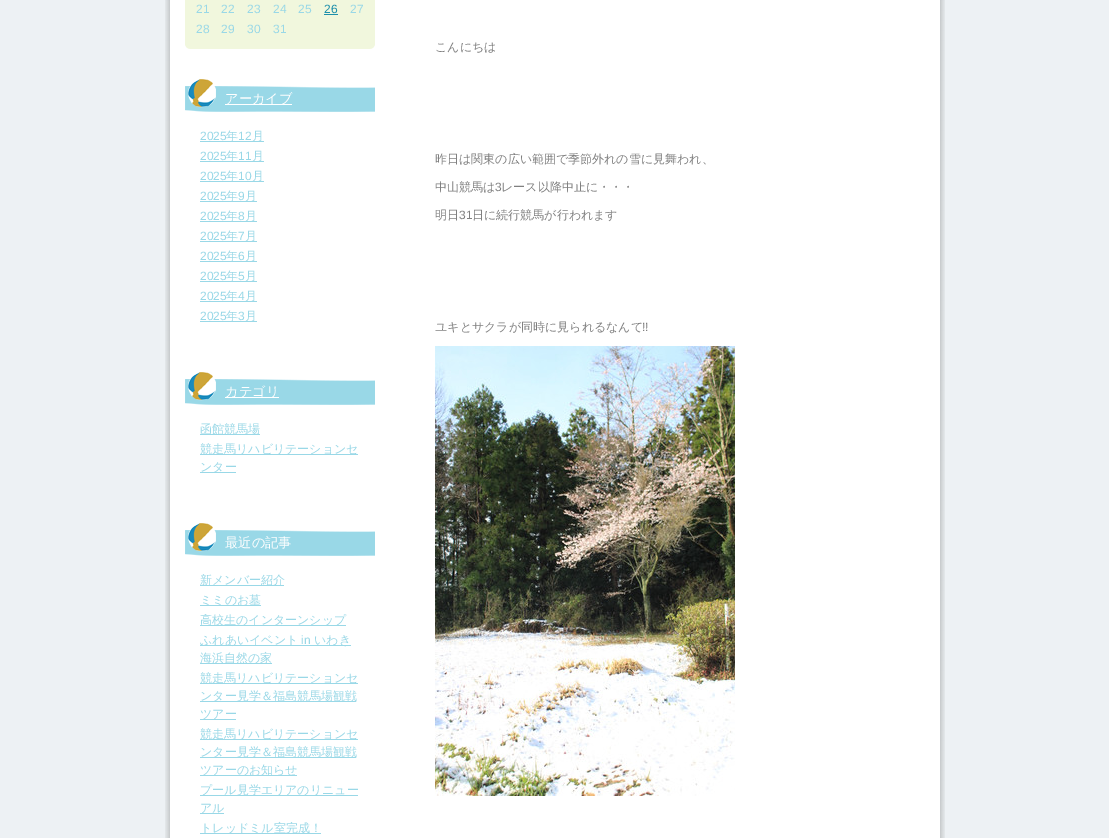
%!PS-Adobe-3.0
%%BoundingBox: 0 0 1109 838
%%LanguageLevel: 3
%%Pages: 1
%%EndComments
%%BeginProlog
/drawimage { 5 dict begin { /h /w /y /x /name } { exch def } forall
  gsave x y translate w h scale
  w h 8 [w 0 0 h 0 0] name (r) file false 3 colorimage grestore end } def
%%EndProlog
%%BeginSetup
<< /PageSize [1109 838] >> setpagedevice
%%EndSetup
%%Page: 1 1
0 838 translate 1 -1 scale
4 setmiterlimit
0.929 0.945 0.957 setrgbcolor
0 0 1109 838 rectfill
(images/1.raw) 165 0 780 838 drawimage
0.945 0.969 0.867 setrgbcolor
185 0 190 45 rectfill
(images/2.raw) 185 45 190 4 drawimage
0.118 0.565 0.671 setrgbcolor
324 14 14 1 rectfill
(images/3.raw) 185 79 190 33 drawimage
1 setgray
225 104 67 1 rectfill
0.6 0.847 0.906 setrgbcolor
200 141 64 1 rectfill
200 161 64 1 rectfill
200 181 64 1 rectfill
200 201 57 1 rectfill
200 221 57 1 rectfill
200 241 57 1 rectfill
200 261 57 1 rectfill
200 281 57 1 rectfill
200 301 57 1 rectfill
200 321 57 1 rectfill
(images/3.raw) 185 372 190 33 drawimage
1 setgray
225 397 54 1 rectfill
0.6 0.847 0.906 setrgbcolor
200 434 60 1 rectfill
200 454 158 1 rectfill
200 472 36 1 rectfill
(images/3.raw) 185 523 190 33 drawimage
200 585 84 1 rectfill
200 605 61 1 rectfill
200 625 146 1 rectfill
200 645 151 1 rectfill
200 663 72 1 rectfill
200 683 158 1 rectfill
200 701 156 1 rectfill
200 719 36 1 rectfill
200 739 158 1 rectfill
200 757 156 1 rectfill
200 775 97 1 rectfill
200 795 158 1 rectfill
200 813 24 1 rectfill
200 833 121 1 rectfill
(images/4.raw) 435 346 300 450 drawimage
/LiberationSans-Regular [12 0 0 -12 0 0] selectfont
196 13 moveto (21) show
221 13 moveto (22) show
247 13 moveto (23) show
273 13 moveto (24) show
298 13 moveto (25) show
0.118 0.565 0.671 setrgbcolor
324 13 moveto (26) show
0.6 0.847 0.906 setrgbcolor
350 13 moveto (27) show
196 33 moveto (28) show
221 33 moveto (29) show
247 33 moveto (30) show
273 33 moveto (31) show
/WenQuanYiZenHei-Medium [13.25 0 0 -13.25 0 0] selectfont
1 setgray
225 103 moveto (アーカイブ) show
/LiberationSans-Regular [12 0 0 -12 0 0] selectfont
0.6 0.847 0.906 setrgbcolor
200 140 moveto (2025) show
/WenQuanYiZenHei-Medium [12 0 0 -12 0 0] selectfont
226 140 moveto (年) show
/LiberationSans-Regular [12 0 0 -12 0 0] selectfont
238 140 moveto (12) show
/WenQuanYiZenHei-Medium [12 0 0 -12 0 0] selectfont
252 140 moveto (月) show
/LiberationSans-Regular [12 0 0 -12 0 0] selectfont
200 160 moveto (2025) show
/WenQuanYiZenHei-Medium [12 0 0 -12 0 0] selectfont
226 160 moveto (年) show
/LiberationSans-Regular [12 0 0 -12 0 0] selectfont
238 160 moveto (11) show
/WenQuanYiZenHei-Medium [12 0 0 -12 0 0] selectfont
252 160 moveto (月) show
/LiberationSans-Regular [12 0 0 -12 0 0] selectfont
200 180 moveto (2025) show
/WenQuanYiZenHei-Medium [12 0 0 -12 0 0] selectfont
226 180 moveto (年) show
/LiberationSans-Regular [12 0 0 -12 0 0] selectfont
238 180 moveto (10) show
/WenQuanYiZenHei-Medium [12 0 0 -12 0 0] selectfont
252 180 moveto (月) show
/LiberationSans-Regular [12 0 0 -12 0 0] selectfont
200 200 moveto (2025) show
/WenQuanYiZenHei-Medium [12 0 0 -12 0 0] selectfont
226 200 moveto (年) show
/LiberationSans-Regular [12 0 0 -12 0 0] selectfont
238 200 moveto (9) show
/WenQuanYiZenHei-Medium [12 0 0 -12 0 0] selectfont
245 200 moveto (月) show
/LiberationSans-Regular [12 0 0 -12 0 0] selectfont
200 220 moveto (2025) show
/WenQuanYiZenHei-Medium [12 0 0 -12 0 0] selectfont
226 220 moveto (年) show
/LiberationSans-Regular [12 0 0 -12 0 0] selectfont
238 220 moveto (8) show
/WenQuanYiZenHei-Medium [12 0 0 -12 0 0] selectfont
245 220 moveto (月) show
/LiberationSans-Regular [12 0 0 -12 0 0] selectfont
200 240 moveto (2025) show
/WenQuanYiZenHei-Medium [12 0 0 -12 0 0] selectfont
226 240 moveto (年) show
/LiberationSans-Regular [12 0 0 -12 0 0] selectfont
238 240 moveto (7) show
/WenQuanYiZenHei-Medium [12 0 0 -12 0 0] selectfont
245 240 moveto (月) show
/LiberationSans-Regular [12 0 0 -12 0 0] selectfont
200 260 moveto (2025) show
/WenQuanYiZenHei-Medium [12 0 0 -12 0 0] selectfont
226 260 moveto (年) show
/LiberationSans-Regular [12 0 0 -12 0 0] selectfont
238 260 moveto (6) show
/WenQuanYiZenHei-Medium [12 0 0 -12 0 0] selectfont
245 260 moveto (月) show
/LiberationSans-Regular [12 0 0 -12 0 0] selectfont
200 280 moveto (2025) show
/WenQuanYiZenHei-Medium [12 0 0 -12 0 0] selectfont
226 280 moveto (年) show
/LiberationSans-Regular [12 0 0 -12 0 0] selectfont
238 280 moveto (5) show
/WenQuanYiZenHei-Medium [12 0 0 -12 0 0] selectfont
245 280 moveto (月) show
/LiberationSans-Regular [12 0 0 -12 0 0] selectfont
200 300 moveto (2025) show
/WenQuanYiZenHei-Medium [12 0 0 -12 0 0] selectfont
226 300 moveto (年) show
/LiberationSans-Regular [12 0 0 -12 0 0] selectfont
238 300 moveto (4) show
/WenQuanYiZenHei-Medium [12 0 0 -12 0 0] selectfont
245 300 moveto (月) show
/LiberationSans-Regular [12 0 0 -12 0 0] selectfont
200 320 moveto (2025) show
/WenQuanYiZenHei-Medium [12 0 0 -12 0 0] selectfont
226 320 moveto (年) show
/LiberationSans-Regular [12 0 0 -12 0 0] selectfont
238 320 moveto (3) show
/WenQuanYiZenHei-Medium [12 0 0 -12 0 0] selectfont
245 320 moveto (月) show
/WenQuanYiZenHei-Medium [13.25 0 0 -13.25 0 0] selectfont
1 setgray
225 396 moveto (カテゴリ) show
/WenQuanYiZenHei-Medium [12 0 0 -12 0 0] selectfont
0.6 0.847 0.906 setrgbcolor
200 433 moveto (函館競馬場) show
200 453 moveto (競走馬リハビリテーションセ) show
200 471 moveto (ンター) show
/WenQuanYiZenHei-Medium [13.25 0 0 -13.25 0 0] selectfont
1 setgray
225 547 moveto (最近の記事) show
/WenQuanYiZenHei-Medium [12 0 0 -12 0 0] selectfont
0.6 0.847 0.906 setrgbcolor
200 584 moveto (新メンバー紹介) show
200 604 moveto (ミミのお墓) show
200 624 moveto (高校生のインターンシップ) show
200 644 moveto (ふれあいイベント) show
/LiberationSans-Regular [12 0 0 -12 0 0] selectfont
301 644 moveto (in) show
/WenQuanYiZenHei-Medium [12 0 0 -12 0 0] selectfont
314 644 moveto (いわき) show
200 662 moveto (海浜自然の家) show
200 682 moveto (競走馬リハビリテーションセ) show
200 700 moveto (ンター見学＆福島競馬場観戦) show
200 718 moveto (ツアー) show
200 738 moveto (競走馬リハビリテーションセ) show
200 756 moveto (ンター見学＆福島競馬場観戦) show
200 774 moveto (ツアーのお知らせ) show
200 794 moveto (プール見学エリアのリニュー) show
200 812 moveto (アル) show
200 832 moveto (トレッドミル室完成！) show
0.502 setgray
435 51 moveto (こんにちは) show
435 163 moveto (昨日は関東の広い範囲で季節外れの雪に見舞われ、) show
435 191 moveto (中山競馬は) show
/LiberationSans-Regular [12 0 0 -12 0 0] selectfont
495 191 moveto (3) show
/WenQuanYiZenHei-Medium [12 0 0 -12 0 0] selectfont
501 191 moveto (レース以降中止に・・・) show
435 219 moveto (明日) show
/LiberationSans-Regular [12 0 0 -12 0 0] selectfont
459 219 moveto (31) show
/WenQuanYiZenHei-Medium [12 0 0 -12 0 0] selectfont
472 219 moveto (日に続行競馬が行われます) show
435 331 moveto (ユキとサクラが同時に見られるなんて) show
/LiberationSans-Regular [12 0 0 -12 0 0] selectfont
642 331 moveto (!!) show
showpage
%%EOF
